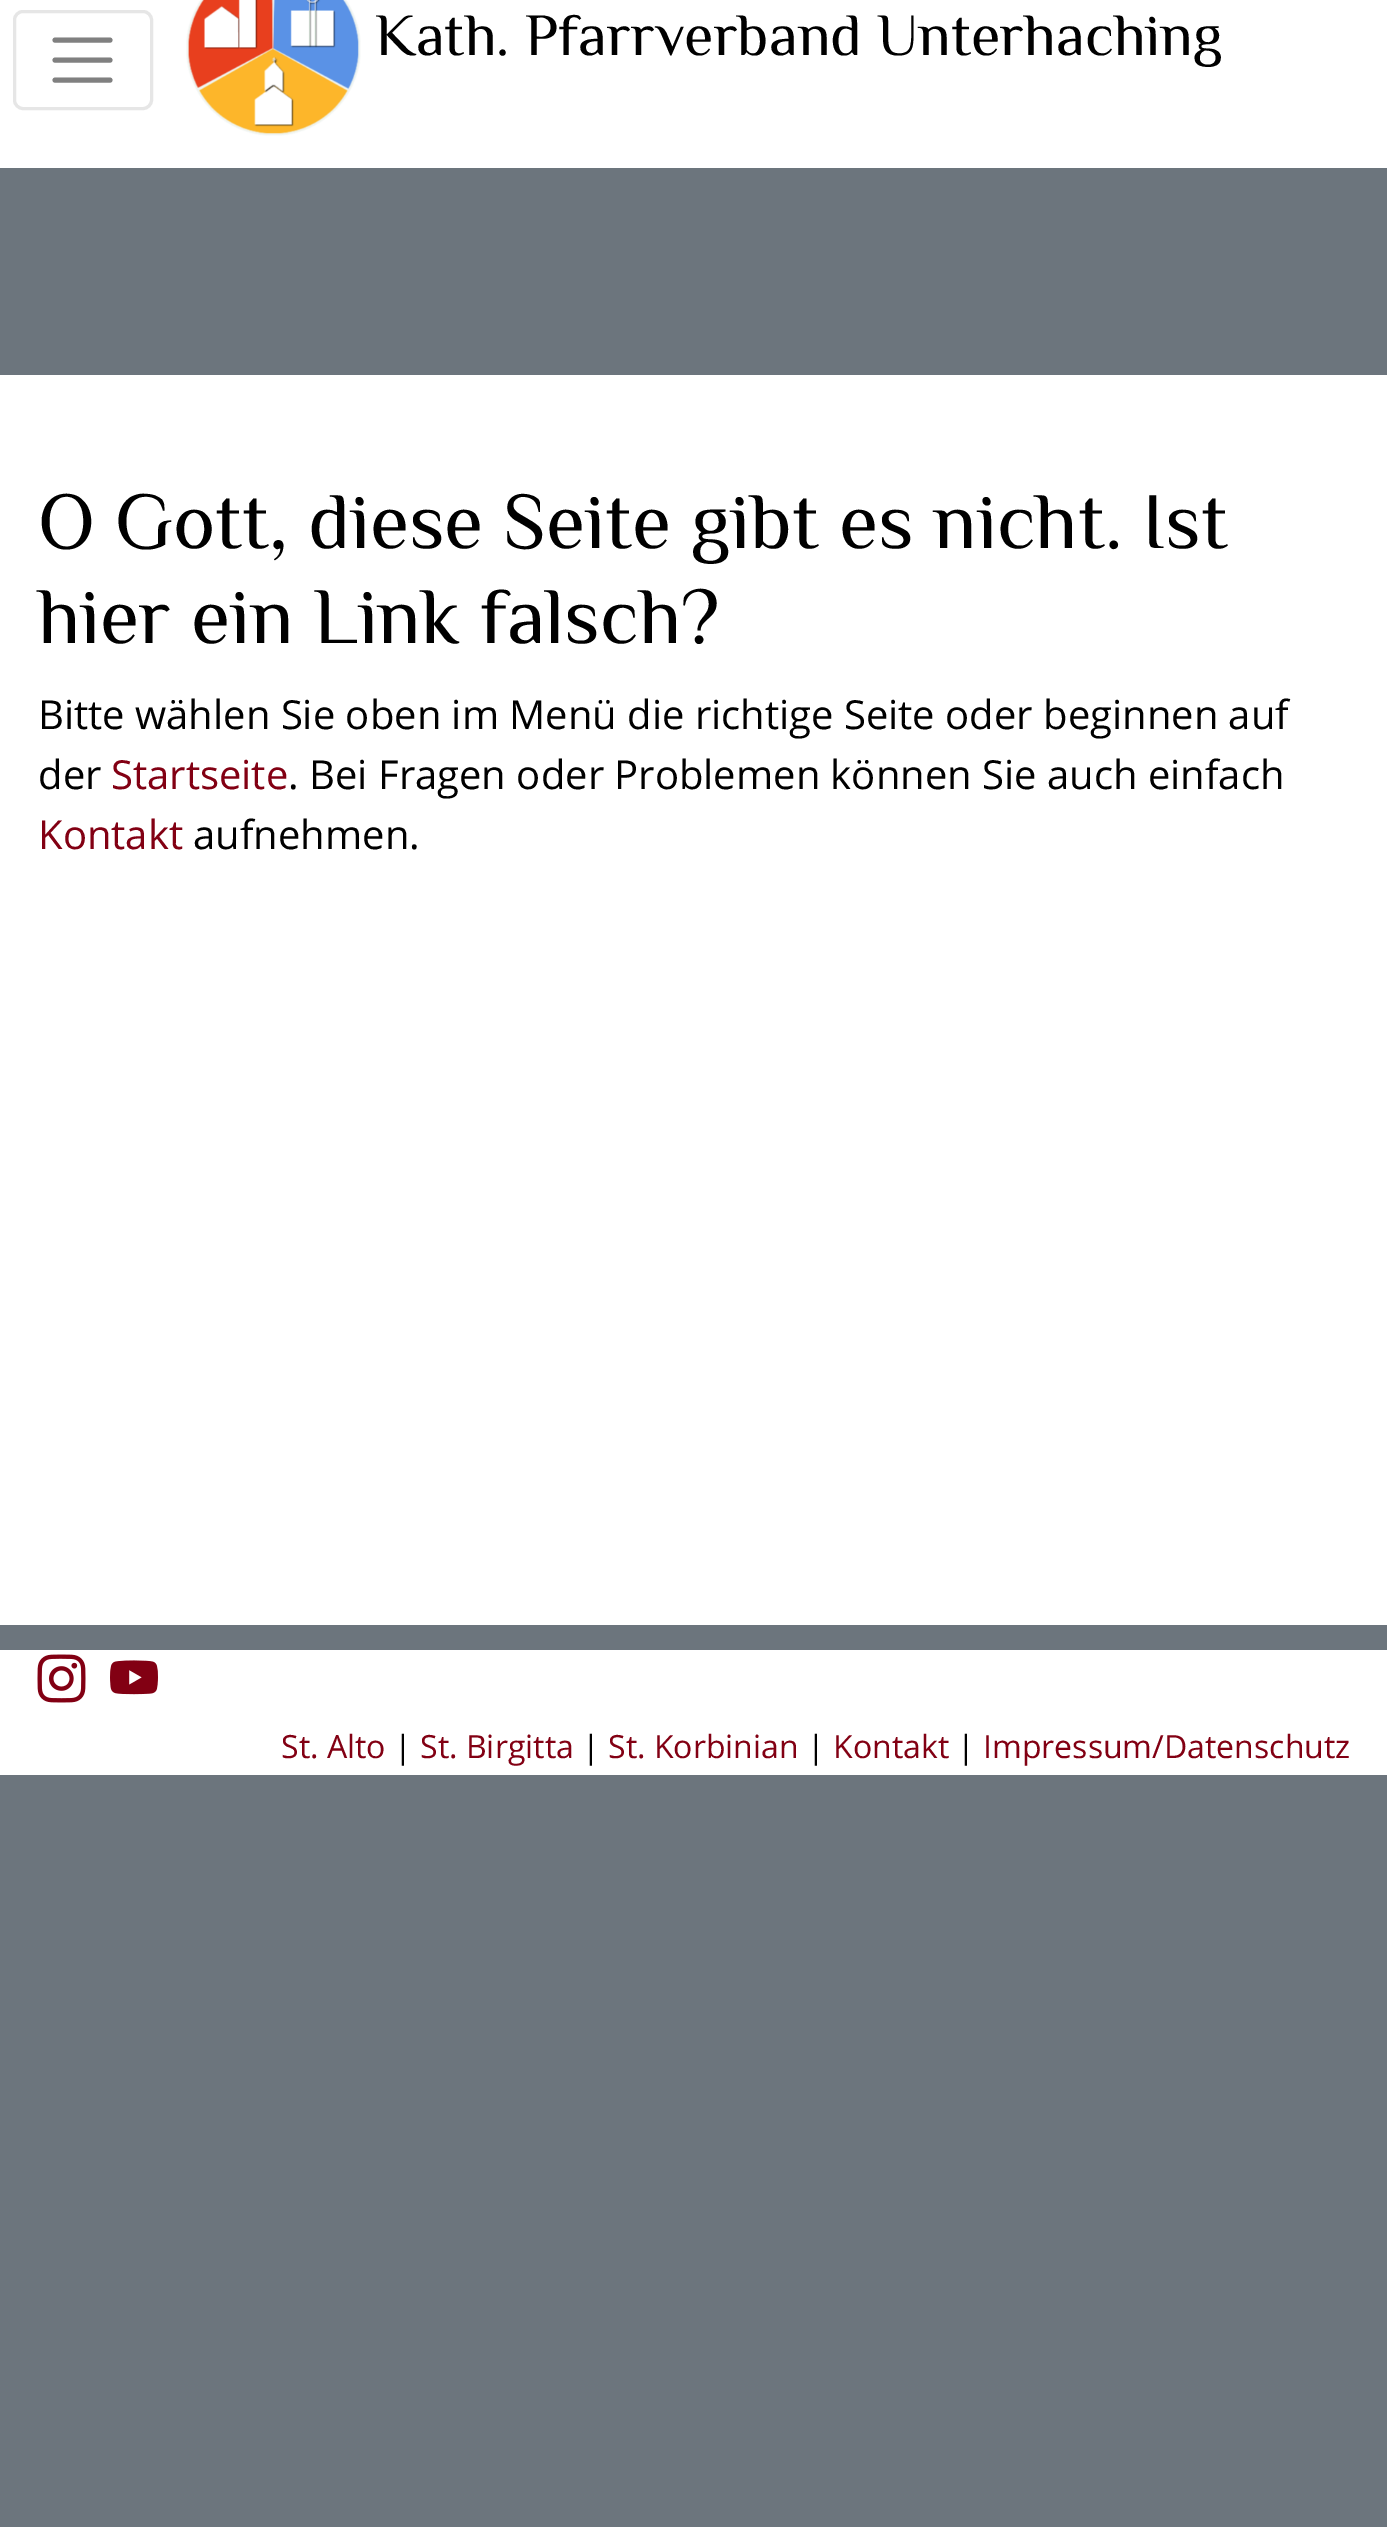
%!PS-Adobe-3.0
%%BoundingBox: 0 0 1387 2527
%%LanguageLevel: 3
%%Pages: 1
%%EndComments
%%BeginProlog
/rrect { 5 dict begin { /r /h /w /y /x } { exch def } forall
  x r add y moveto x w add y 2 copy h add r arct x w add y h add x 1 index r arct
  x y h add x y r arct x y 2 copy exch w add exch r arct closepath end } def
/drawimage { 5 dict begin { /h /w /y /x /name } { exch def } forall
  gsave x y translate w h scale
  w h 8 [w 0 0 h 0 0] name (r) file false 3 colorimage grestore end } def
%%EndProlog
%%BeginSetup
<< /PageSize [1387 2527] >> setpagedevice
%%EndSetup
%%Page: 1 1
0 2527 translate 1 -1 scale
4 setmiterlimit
0.424 0.459 0.49 setrgbcolor
0 0 1387 2527 rectfill
1 setgray
0 0 1387 168 rectfill
0.902 setgray
3 setlinewidth
14.5 11.5 137 97 8.5 rrect stroke
0.502 setgray
5 setlinewidth
1 setlinecap
newpath 55 40 moveto 110 40 lineto 55 60 moveto 110 60 lineto 55 80 moveto 110 80 lineto stroke
(images/1.raw) 186 0 175 136 drawimage
1 setgray
0 375 1387 1250 rectfill
0 1650 1387 125 rectfill
(images/2.raw) 37 1654 49 49 drawimage
(images/3.raw) 110 1660 48 35 drawimage
/Philosopher-Regular [60 0 0 -60 0 0] selectfont
0 setgray
375 55 moveto (Kath. Pfarrverband Unterhaching) show
/Philosopher-Regular [80 0 0 -80 0 0] selectfont
38 548 moveto (O Gott, diese Seite gibt es nicht. Ist) show
38 643 moveto (hier ein Link falsch?) show
/OpenSans-Regular [40 0 0 -40 0 0] selectfont
38 729 moveto (Bitte wählen Sie oben im Menü die richtige Seite oder beginnen auf) show
38 789 moveto (der) show
0.51 0 0.075 setrgbcolor
111 789 moveto (Startseite) show
0 setgray
288 789 moveto (. Bei Fragen oder Problemen können Sie auch einfach) show
0.51 0 0.075 setrgbcolor
38 849 moveto (Kontakt) show
0 setgray
193 849 moveto (aufnehmen.) show
/OpenSans-Regular [32 0 0 -32 0 0] selectfont
0.51 0 0.075 setrgbcolor
281 1758 moveto (St. Alto) show
0 setgray
394 1758 moveto (|) show
0.51 0 0.075 setrgbcolor
420 1758 moveto (St. Birgitta) show
0 setgray
582 1758 moveto (|) show
0.51 0 0.075 setrgbcolor
608 1758 moveto (St. Korbinian) show
0 setgray
807 1758 moveto (|) show
0.51 0 0.075 setrgbcolor
833 1758 moveto (Kontakt) show
0 setgray
957 1758 moveto (|) show
0.51 0 0.075 setrgbcolor
983 1758 moveto (Impressum/Datenschutz) show
showpage
%%EOF
